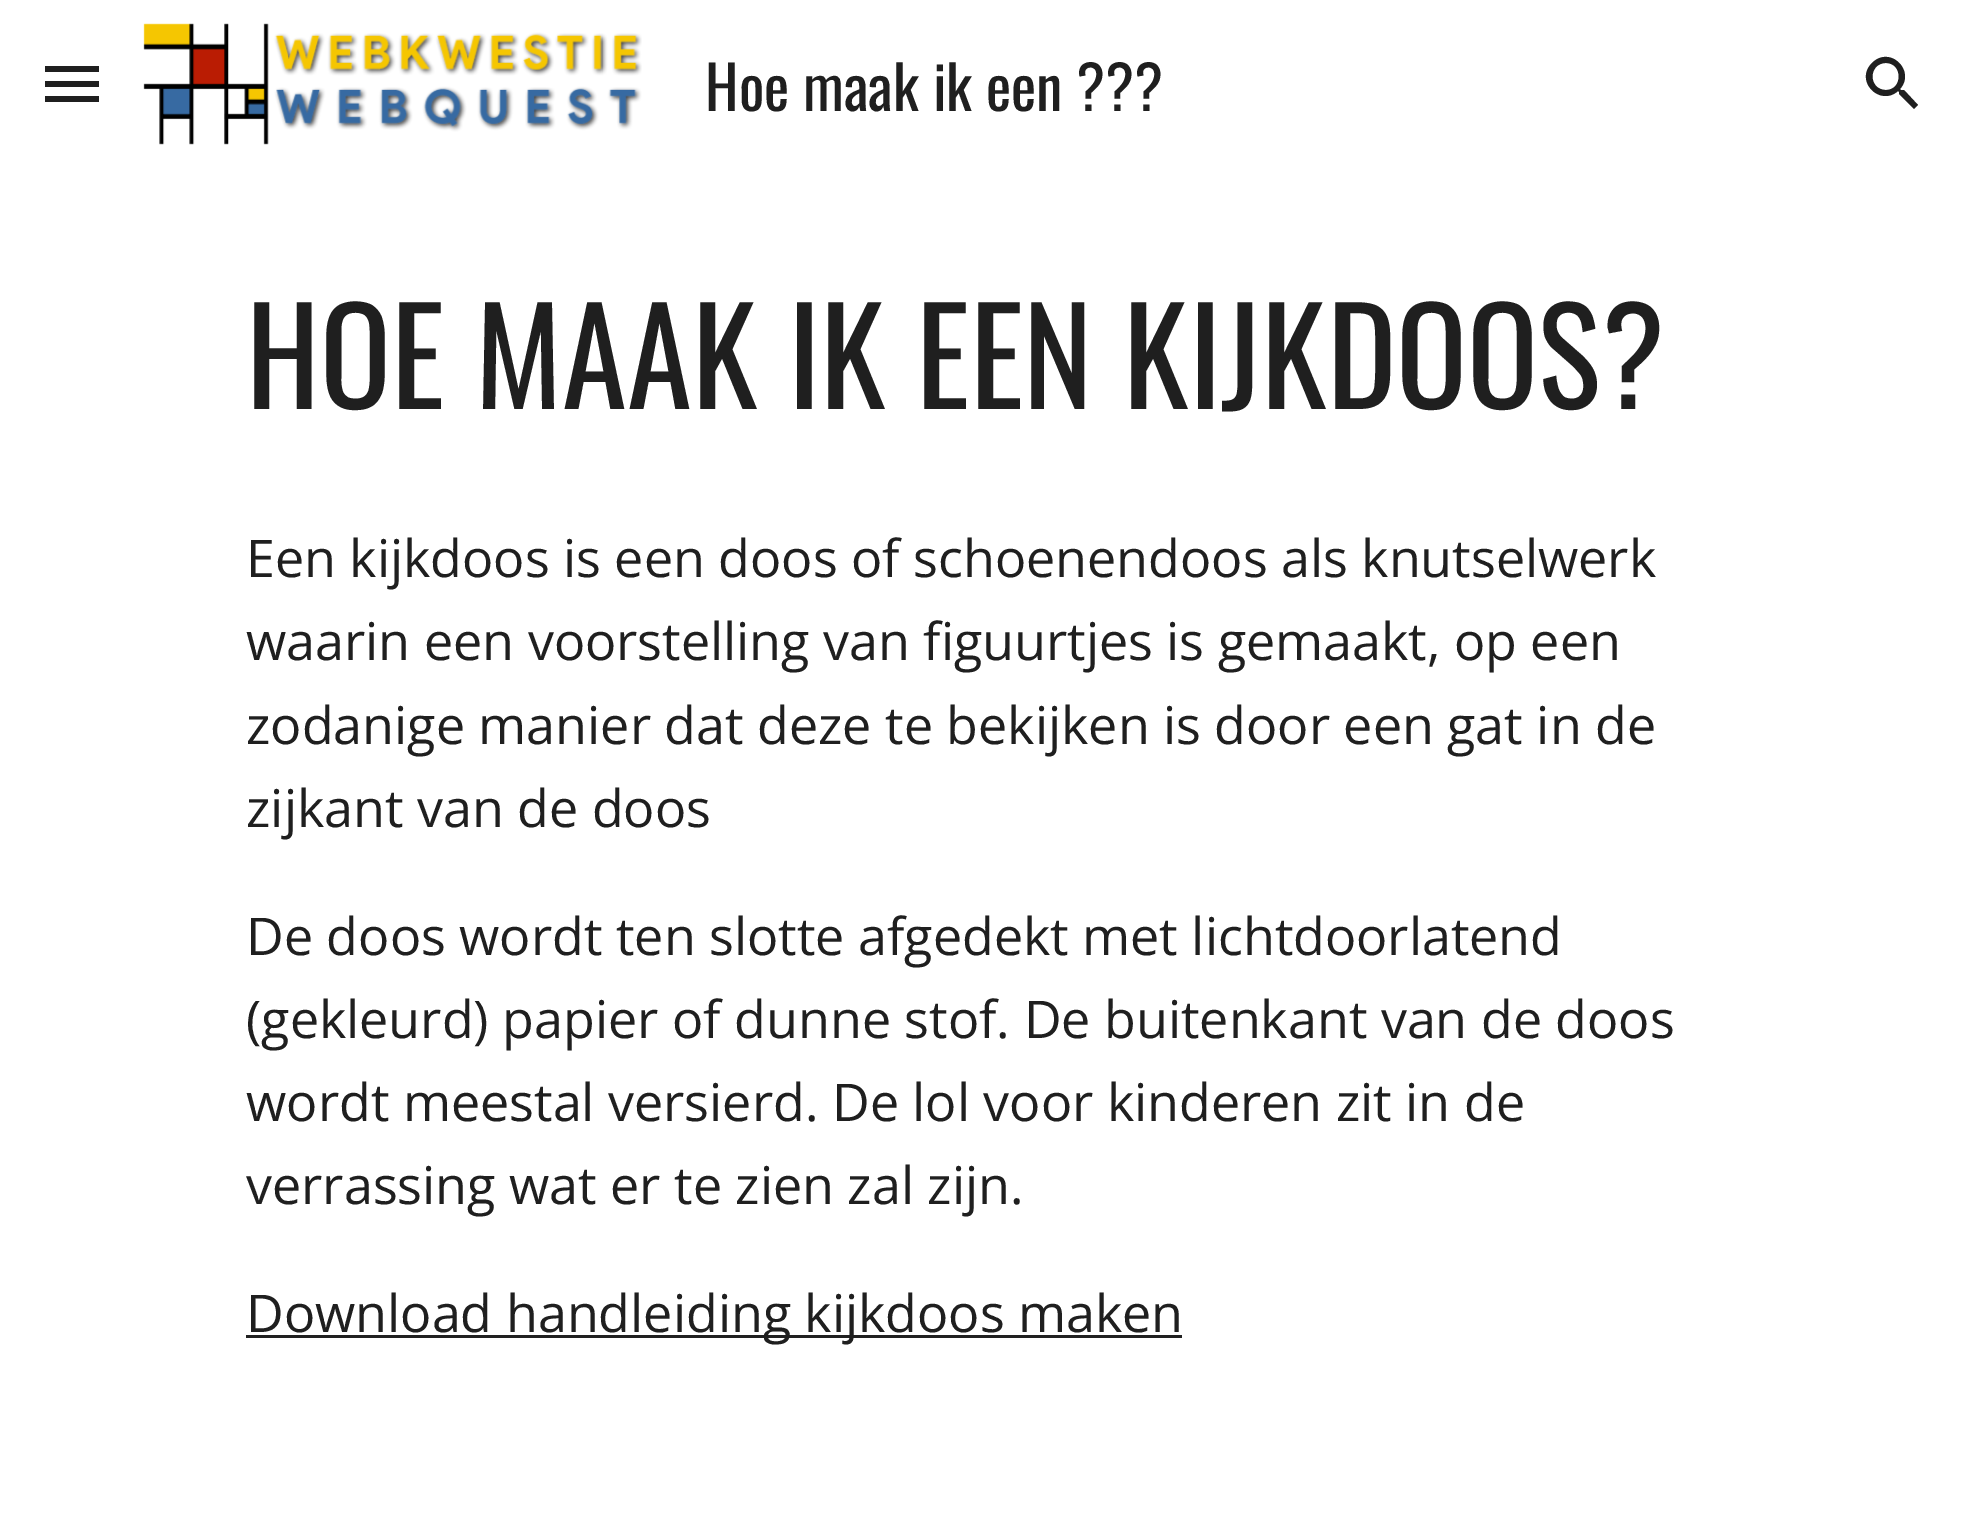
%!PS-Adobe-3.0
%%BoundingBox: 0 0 1965 1524
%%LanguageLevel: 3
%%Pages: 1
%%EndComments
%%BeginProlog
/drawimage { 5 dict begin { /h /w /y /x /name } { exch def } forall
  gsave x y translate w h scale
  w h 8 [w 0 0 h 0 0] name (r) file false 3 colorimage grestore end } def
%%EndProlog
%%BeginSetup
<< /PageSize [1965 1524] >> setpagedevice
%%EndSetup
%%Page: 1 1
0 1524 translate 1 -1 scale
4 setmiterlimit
1 setgray
0 0 1965 1524 rectfill
0.122 setgray
45 66 54 6 rectfill
45 81 54 6 rectfill
45 96 54 6 rectfill
(images/1.raw) 143 23 499 122 drawimage
newpath 1904 90 moveto 1901 90 lineto 1900 89 lineto 1916 71 1890 45 1872 63 curveto 1854 81 1880 107 1898 91 curveto 1899 92 lineto 1899 94 lineto 1914 109 lineto 1918 105 lineto closepath 1886 90 moveto 1868 90 1868 63 1886 63 curveto 1903 63 1903 90 1886 90 curveto closepath fill
0.129 setgray
246 1335 936 3 rectfill
/Oswald-Regular [60 0 0 -60 0 0] selectfont
0.122 setgray
705 111 moveto (Hoe maak ik een ???) show
/Oswald-Regular [132 0 0 -132 0 0] selectfont
246 409 moveto (HOE MAAK IK EEN KIJKDOOS?) show
/OpenSans-Regular [52 0 0 -52 0 0] selectfont
246 577 moveto (Een kijkdoos is een doos of schoenendoos als knutselwerk) show
246 660 moveto (waarin een voorstelling van figuurtjes is gemaakt, op een) show
246 744 moveto (zodanige manier dat deze te bekijken is door een gat in de) show
246 827 moveto (zijkant van de doos) show
246 955 moveto (De doos wordt ten slotte afgedekt met lichtdoorlatend) show
246 1038 moveto (\(gekleurd\) papier of dunne stof. De buitenkant van de doos) show
246 1121 moveto (wordt meestal versierd. De lol voor kinderen zit in de) show
246 1204 moveto (verrassing wat er te zien zal zijn.) show
246 1332 moveto (Download handleiding kijkdoos maken) show
showpage
%%EOF
